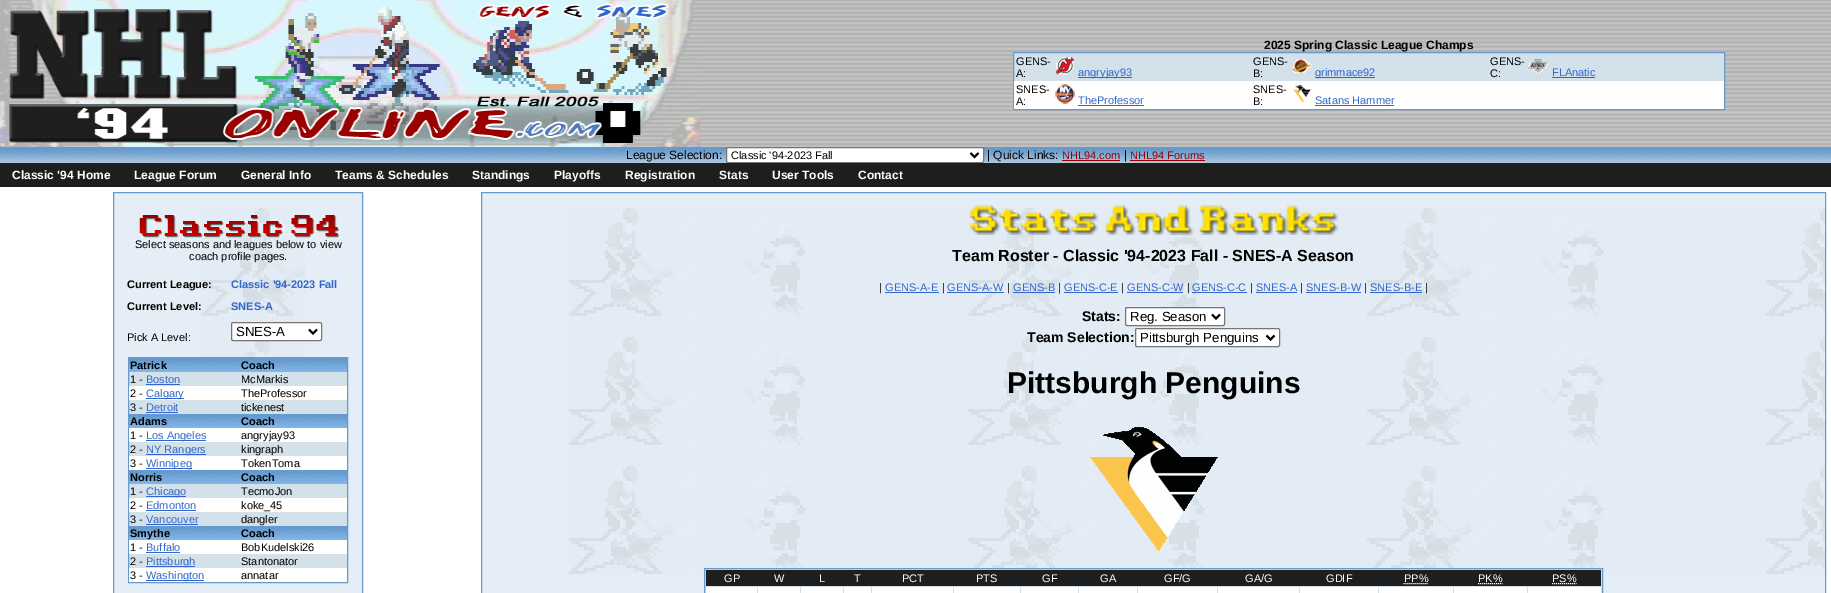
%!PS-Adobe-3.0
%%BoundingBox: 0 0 1831 593
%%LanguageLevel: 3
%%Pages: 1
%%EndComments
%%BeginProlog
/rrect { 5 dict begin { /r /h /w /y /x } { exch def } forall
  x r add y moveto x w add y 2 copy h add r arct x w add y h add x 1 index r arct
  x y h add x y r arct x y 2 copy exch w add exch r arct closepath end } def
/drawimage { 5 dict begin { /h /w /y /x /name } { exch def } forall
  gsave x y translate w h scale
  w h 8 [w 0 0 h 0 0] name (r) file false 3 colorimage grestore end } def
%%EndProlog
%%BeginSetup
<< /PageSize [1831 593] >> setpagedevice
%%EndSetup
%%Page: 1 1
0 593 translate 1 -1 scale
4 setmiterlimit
1 setgray
0 0 1831 593 rectfill
(images/1.raw) 700 0 207 147 drawimage
(images/2.raw) 0 0 700 147 drawimage
(images/3.raw) 907 0 924 147 drawimage
0.827 0.886 0.918 setrgbcolor
1014 53 710 28 rectfill
0.4 0.6 0.8 setrgbcolor
1013.5 52.5 711 57 rectstroke
(images/4.raw) 1056 57 18 18 drawimage
0.2 0.4 0.8 setrgbcolor
1078 77 54 1 rectfill
(images/5.raw) 1292 59 20 14 drawimage
1315 77 60 1 rectfill
(images/6.raw) 1528 59 20 14 drawimage
1552 77 43 1 rectfill
1 setgray
1014 81 710 28 rectfill
(images/7.raw) 1055 84 20 20 drawimage
0.2 0.4 0.8 setrgbcolor
1078 105 66 1 rectfill
(images/8.raw) 1292 85 20 18 drawimage
1315 105 79 1 rectfill
0.4 0.6 0.8 setrgbcolor
0 147 1831 3 rectfill
(images/9.raw) 0 150 1831 13 drawimage
1 setgray
726.5 147.5 257 15 1.5 rrect gsave fill grestore
0.463 setgray
stroke
0 setgray
2 setlinewidth
newpath 970.5 153 moveto 974.5 157 lineto 978.5 153 lineto stroke
0.608 0 0 setrgbcolor
1062 160 58 1 rectfill
1130 160 75 1 rectfill
0.118 setgray
0 163 1831 24 rectfill
0.898 0.933 0.965 setrgbcolor
114 193 248 400 rectfill
(images/10.raw) 201 208 105 149 drawimage
0.4 0.6 0.8 setrgbcolor
1 setlinewidth
113.5 192.5 249 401 rectstroke
(images/11.raw) 139 215 201 23 drawimage
1 setgray
231.5 322.5 90 18 1.5 rrect gsave fill grestore
0.463 setgray
stroke
0 setgray
2 setlinewidth
newpath 309 329.5 moveto 313 333.5 lineto 317 329.5 lineto stroke
0.827 0.886 0.918 setrgbcolor
129 372 218 196 rectfill
0.4 0.6 0.8 setrgbcolor
1 setlinewidth
128.5 357.5 219 225 rectstroke
129 358 218 3 rectfill
(images/12.raw) 129 361 111 11 drawimage
(images/13.raw) 240 361 107 11 drawimage
0.2 0.4 0.8 setrgbcolor
146 384 34 1 rectfill
1 setgray
129 386 218 14 rectfill
0.2 0.4 0.8 setrgbcolor
146 398 38 1 rectfill
146 412 32 1 rectfill
0.4 0.6 0.8 setrgbcolor
129 414 218 3 rectfill
(images/12.raw) 129 417 111 11 drawimage
(images/13.raw) 240 417 107 11 drawimage
1 setgray
129 428 218 14 rectfill
0.2 0.4 0.8 setrgbcolor
146 440 60 1 rectfill
146 454 60 1 rectfill
1 setgray
129 456 218 14 rectfill
0.2 0.4 0.8 setrgbcolor
146 468 46 1 rectfill
0.4 0.6 0.8 setrgbcolor
129 470 218 3 rectfill
(images/12.raw) 129 473 111 11 drawimage
(images/13.raw) 240 473 107 11 drawimage
0.2 0.4 0.8 setrgbcolor
146 496 40 1 rectfill
1 setgray
129 498 218 14 rectfill
0.2 0.4 0.8 setrgbcolor
146 510 50 1 rectfill
146 524 52 1 rectfill
0.4 0.6 0.8 setrgbcolor
129 526 218 3 rectfill
(images/12.raw) 129 529 111 11 drawimage
(images/13.raw) 240 529 107 11 drawimage
1 setgray
129 540 218 14 rectfill
0.2 0.4 0.8 setrgbcolor
146 552 34 1 rectfill
146 566 49 1 rectfill
1 setgray
129 568 218 14 rectfill
0.2 0.4 0.8 setrgbcolor
146 580 58 1 rectfill
0.898 0.933 0.965 setrgbcolor
482 193 1343 400 rectfill
(images/14.raw) 569 208 1256 366 drawimage
0.4 0.6 0.8 setrgbcolor
481.5 192.5 1344 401 rectstroke
(images/15.raw) 970 205 368 30 drawimage
0.2 0.4 0.8 setrgbcolor
885 292 54 1 rectfill
947 292 57 1 rectfill
1013 292 42 1 rectfill
1064 292 54 1 rectfill
1127 292 56 1 rectfill
1192 292 55 1 rectfill
1256 292 41 1 rectfill
1306 292 55 1 rectfill
1370 292 52 1 rectfill
1 setgray
1125.5 307.5 99 18 1.5 rrect gsave fill grestore
0.463 setgray
stroke
0 setgray
2 setlinewidth
newpath 1212 314.5 moveto 1216 318.5 lineto 1220 314.5 lineto stroke
1 setgray
1135.5 328.5 144 18 1.5 rrect gsave fill grestore
0.463 setgray
1 setlinewidth
stroke
0 setgray
2 setlinewidth
newpath 1266.5 335.5 moveto 1270.5 339.5 lineto 1274.5 335.5 lineto stroke
(images/16.raw) 1090 427 128 124 drawimage
0.827 0.886 0.918 setrgbcolor
newpath 704.5 568.5 moveto 1602.5 568.5 lineto 1602.5 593.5 lineto 704.5 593.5 lineto closepath gsave fill grestore
0.4 0.6 0.8 setrgbcolor
1 setlinewidth
stroke
0.118 setgray
706 570 895 16 rectfill
1 setgray
[1 1] 0 setdash
newpath 1403.5 583.5 moveto 1428 583.5 lineto stroke
newpath 1478 583.5 moveto 1502.5 583.5 lineto stroke
newpath 1552 583.5 moveto 1576.5 583.5 lineto stroke
706 587 51 6 rectfill
758 587 42 6 rectfill
801 587 42 6 rectfill
844 587 27 6 rectfill
872 587 81 6 rectfill
954 587 66 6 rectfill
1021 587 57 6 rectfill
1079 587 58 6 rectfill
1138 587 79 6 rectfill
1218 587 81 6 rectfill
1300 587 78 6 rectfill
1379 587 74 6 rectfill
1454 587 73 6 rectfill
1528 587 73 6 rectfill
/LiberationSans-Bold [12 0 0 -12 0 0] selectfont
0 setgray
1264 49 moveto (2025 Spring Classic League Champs) show
/LiberationSans-Regular [11 0 0 -11 0 0] selectfont
1016 65 moveto (GENS-) show
1016 77 moveto (A:) show
0.2 0.4 0.8 setrgbcolor
1078 76 moveto (angryjay93) show
0 setgray
1253 65 moveto (GENS-) show
1253 77 moveto (B:) show
0.2 0.4 0.8 setrgbcolor
1315 76 moveto (grimmace92) show
0 setgray
1490 65 moveto (GENS-) show
1490 77 moveto (C:) show
0.2 0.4 0.8 setrgbcolor
1552 76 moveto (FLAnatic) show
0 setgray
1016 93 moveto (SNES-) show
1016 105 moveto (A:) show
0.2 0.4 0.8 setrgbcolor
1078 104 moveto (TheProfessor) show
0 setgray
1253 93 moveto (SNES-) show
1253 105 moveto (B:) show
0.2 0.4 0.8 setrgbcolor
1315 104 moveto (Satans Hammer) show
/LiberationSans-Regular [12 0 0 -12 0 0] selectfont
0 setgray
626 159 moveto (League Selection:) show
/LiberationSans-Regular [11 0 0 -11 0 0] selectfont
731 159 moveto (Classic '94-2023 Fall) show
/LiberationSans-Regular [12 0 0 -12 0 0] selectfont
987 159 moveto (| Quick Links:) show
/LiberationSans-Regular [11 0 0 -11 0 0] selectfont
0.608 0 0 setrgbcolor
1062 159 moveto (NHL94.com) show
/LiberationSans-Regular [12 0 0 -12 0 0] selectfont
0 setgray
1124 159 moveto (|) show
/LiberationSans-Regular [11 0 0 -11 0 0] selectfont
0.608 0 0 setrgbcolor
1130 159 moveto (NHL94 Forums) show
/LiberationSans-Bold [12 0 0 -12 0 0] selectfont
1 setgray
12 179 moveto (Classic '94 Home) show
134 179 moveto (League Forum) show
241 179 moveto (General Info) show
335 179 moveto (Teams & Schedules) show
472 179 moveto (Standings) show
554 179 moveto (Playoffs) show
625 179 moveto (Registration) show
719 179 moveto (Stats) show
772 179 moveto (User Tools) show
858 179 moveto (Contact) show
/LiberationSans-Regular [11 0 0 -11 0 0] selectfont
0 setgray
135 248 moveto (Select seasons and leagues below to view) show
189 260 moveto (coach profile pages.) show
/LiberationSans-Bold [11 0 0 -11 0 0] selectfont
127 288 moveto (Current League:) show
0.2 0.4 0.8 setrgbcolor
231 288 moveto (Classic '94-2023 Fall) show
0 setgray
127 310 moveto (Current Level:) show
0.2 0.4 0.8 setrgbcolor
231 310 moveto (SNES-A) show
/LiberationSans-Regular [11 0 0 -11 0 0] selectfont
0 setgray
127 341 moveto (Pick A Level:) show
/LiberationSans-Regular [13.25 0 0 -13.25 0 0] selectfont
236 336 moveto (SNES-A) show
/LiberationSans-Bold [11 0 0 -11 0 0] selectfont
130 369 moveto (Patrick) show
241 369 moveto (Coach) show
/LiberationSans-Regular [11 0 0 -11 0 0] selectfont
130 383 moveto (1 -) show
0.2 0.4 0.8 setrgbcolor
146 383 moveto (Boston) show
0 setgray
241 383 moveto (McMarkis) show
130 397 moveto (2 -) show
0.2 0.4 0.8 setrgbcolor
146 397 moveto (Calgary) show
0 setgray
241 397 moveto (TheProfessor) show
130 411 moveto (3 -) show
0.2 0.4 0.8 setrgbcolor
146 411 moveto (Detroit) show
0 setgray
241 411 moveto (tickenest) show
/LiberationSans-Bold [11 0 0 -11 0 0] selectfont
130 425 moveto (Adams) show
241 425 moveto (Coach) show
/LiberationSans-Regular [11 0 0 -11 0 0] selectfont
130 439 moveto (1 -) show
0.2 0.4 0.8 setrgbcolor
146 439 moveto (Los Angeles) show
0 setgray
241 439 moveto (angryjay93) show
130 453 moveto (2 -) show
0.2 0.4 0.8 setrgbcolor
146 453 moveto (NY Rangers) show
0 setgray
241 453 moveto (kingraph) show
130 467 moveto (3 -) show
0.2 0.4 0.8 setrgbcolor
146 467 moveto (Winnipeg) show
0 setgray
241 467 moveto (TokenToma) show
/LiberationSans-Bold [11 0 0 -11 0 0] selectfont
130 481 moveto (Norris) show
241 481 moveto (Coach) show
/LiberationSans-Regular [11 0 0 -11 0 0] selectfont
130 495 moveto (1 -) show
0.2 0.4 0.8 setrgbcolor
146 495 moveto (Chicago) show
0 setgray
241 495 moveto (TecmoJon) show
130 509 moveto (2 -) show
0.2 0.4 0.8 setrgbcolor
146 509 moveto (Edmonton) show
0 setgray
241 509 moveto (koke_45) show
130 523 moveto (3 -) show
0.2 0.4 0.8 setrgbcolor
146 523 moveto (Vancouver) show
0 setgray
241 523 moveto (dangler) show
/LiberationSans-Bold [11 0 0 -11 0 0] selectfont
130 537 moveto (Smythe) show
241 537 moveto (Coach) show
/LiberationSans-Regular [11 0 0 -11 0 0] selectfont
130 551 moveto (1 -) show
0.2 0.4 0.8 setrgbcolor
146 551 moveto (Buffalo) show
0 setgray
241 551 moveto (BobKudelski26) show
130 565 moveto (2 -) show
0.2 0.4 0.8 setrgbcolor
146 565 moveto (Pittsburgh) show
0 setgray
241 565 moveto (Stantonator) show
130 579 moveto (3 -) show
0.2 0.4 0.8 setrgbcolor
146 579 moveto (Washington) show
0 setgray
241 579 moveto (annatar) show
/LiberationSans-Bold [16 0 0 -16 0 0] selectfont
952 261 moveto (Team Roster - Classic '94-2023 Fall - SNES-A Season) show
/LiberationSans-Regular [11 0 0 -11 0 0] selectfont
879 291 moveto (|) show
0.2 0.4 0.8 setrgbcolor
885 291 moveto (GENS-A-E) show
0 setgray
942 291 moveto (|) show
0.2 0.4 0.8 setrgbcolor
947 291 moveto (GENS-A-W) show
0 setgray
1007 291 moveto (|) show
0.2 0.4 0.8 setrgbcolor
1013 291 moveto (GENS-B) show
0 setgray
1058 291 moveto (|) show
0.2 0.4 0.8 setrgbcolor
1064 291 moveto (GENS-C-E) show
0 setgray
1121 291 moveto (|) show
0.2 0.4 0.8 setrgbcolor
1127 291 moveto (GENS-C-W) show
0 setgray
1187 291 moveto (|) show
0.2 0.4 0.8 setrgbcolor
1192 291 moveto (GENS-C-C) show
0 setgray
1250 291 moveto (|) show
0.2 0.4 0.8 setrgbcolor
1256 291 moveto (SNES-A) show
0 setgray
1300 291 moveto (|) show
0.2 0.4 0.8 setrgbcolor
1306 291 moveto (SNES-B-W) show
0 setgray
1364 291 moveto (|) show
0.2 0.4 0.8 setrgbcolor
1370 291 moveto (SNES-B-E) show
0 setgray
1425 291 moveto (|) show
/LiberationSans-Bold [14 0 0 -14 0 0] selectfont
1082 321 moveto (Stats:) show
/LiberationSans-Regular [13.25 0 0 -13.25 0 0] selectfont
1130 321 moveto (Reg. Season) show
/LiberationSans-Bold [14 0 0 -14 0 0] selectfont
1027 342 moveto (Team Selection:) show
/LiberationSans-Regular [13.25 0 0 -13.25 0 0] selectfont
1140 342 moveto (Pittsburgh Penguins) show
/LiberationSans-Bold [30 0 0 -30 0 0] selectfont
1007 393 moveto (Pittsburgh Penguins) show
/LiberationSans-Regular [11 0 0 -11 0 0] selectfont
1 setgray
724 582 moveto (GP) show
774 582 moveto (W) show
819 582 moveto (L) show
854 582 moveto (T) show
902 582 moveto (PCT) show
976 582 moveto (PTS) show
1042 582 moveto (GF) show
1100 582 moveto (GA) show
1164 582 moveto (GF/G) show
1245 582 moveto (GA/G) show
1326 582 moveto (GDIF) show
1404 582 moveto (PP%) show
1478 582 moveto (PK%) show
1552 582 moveto (PS%) show
showpage
%%EOF
